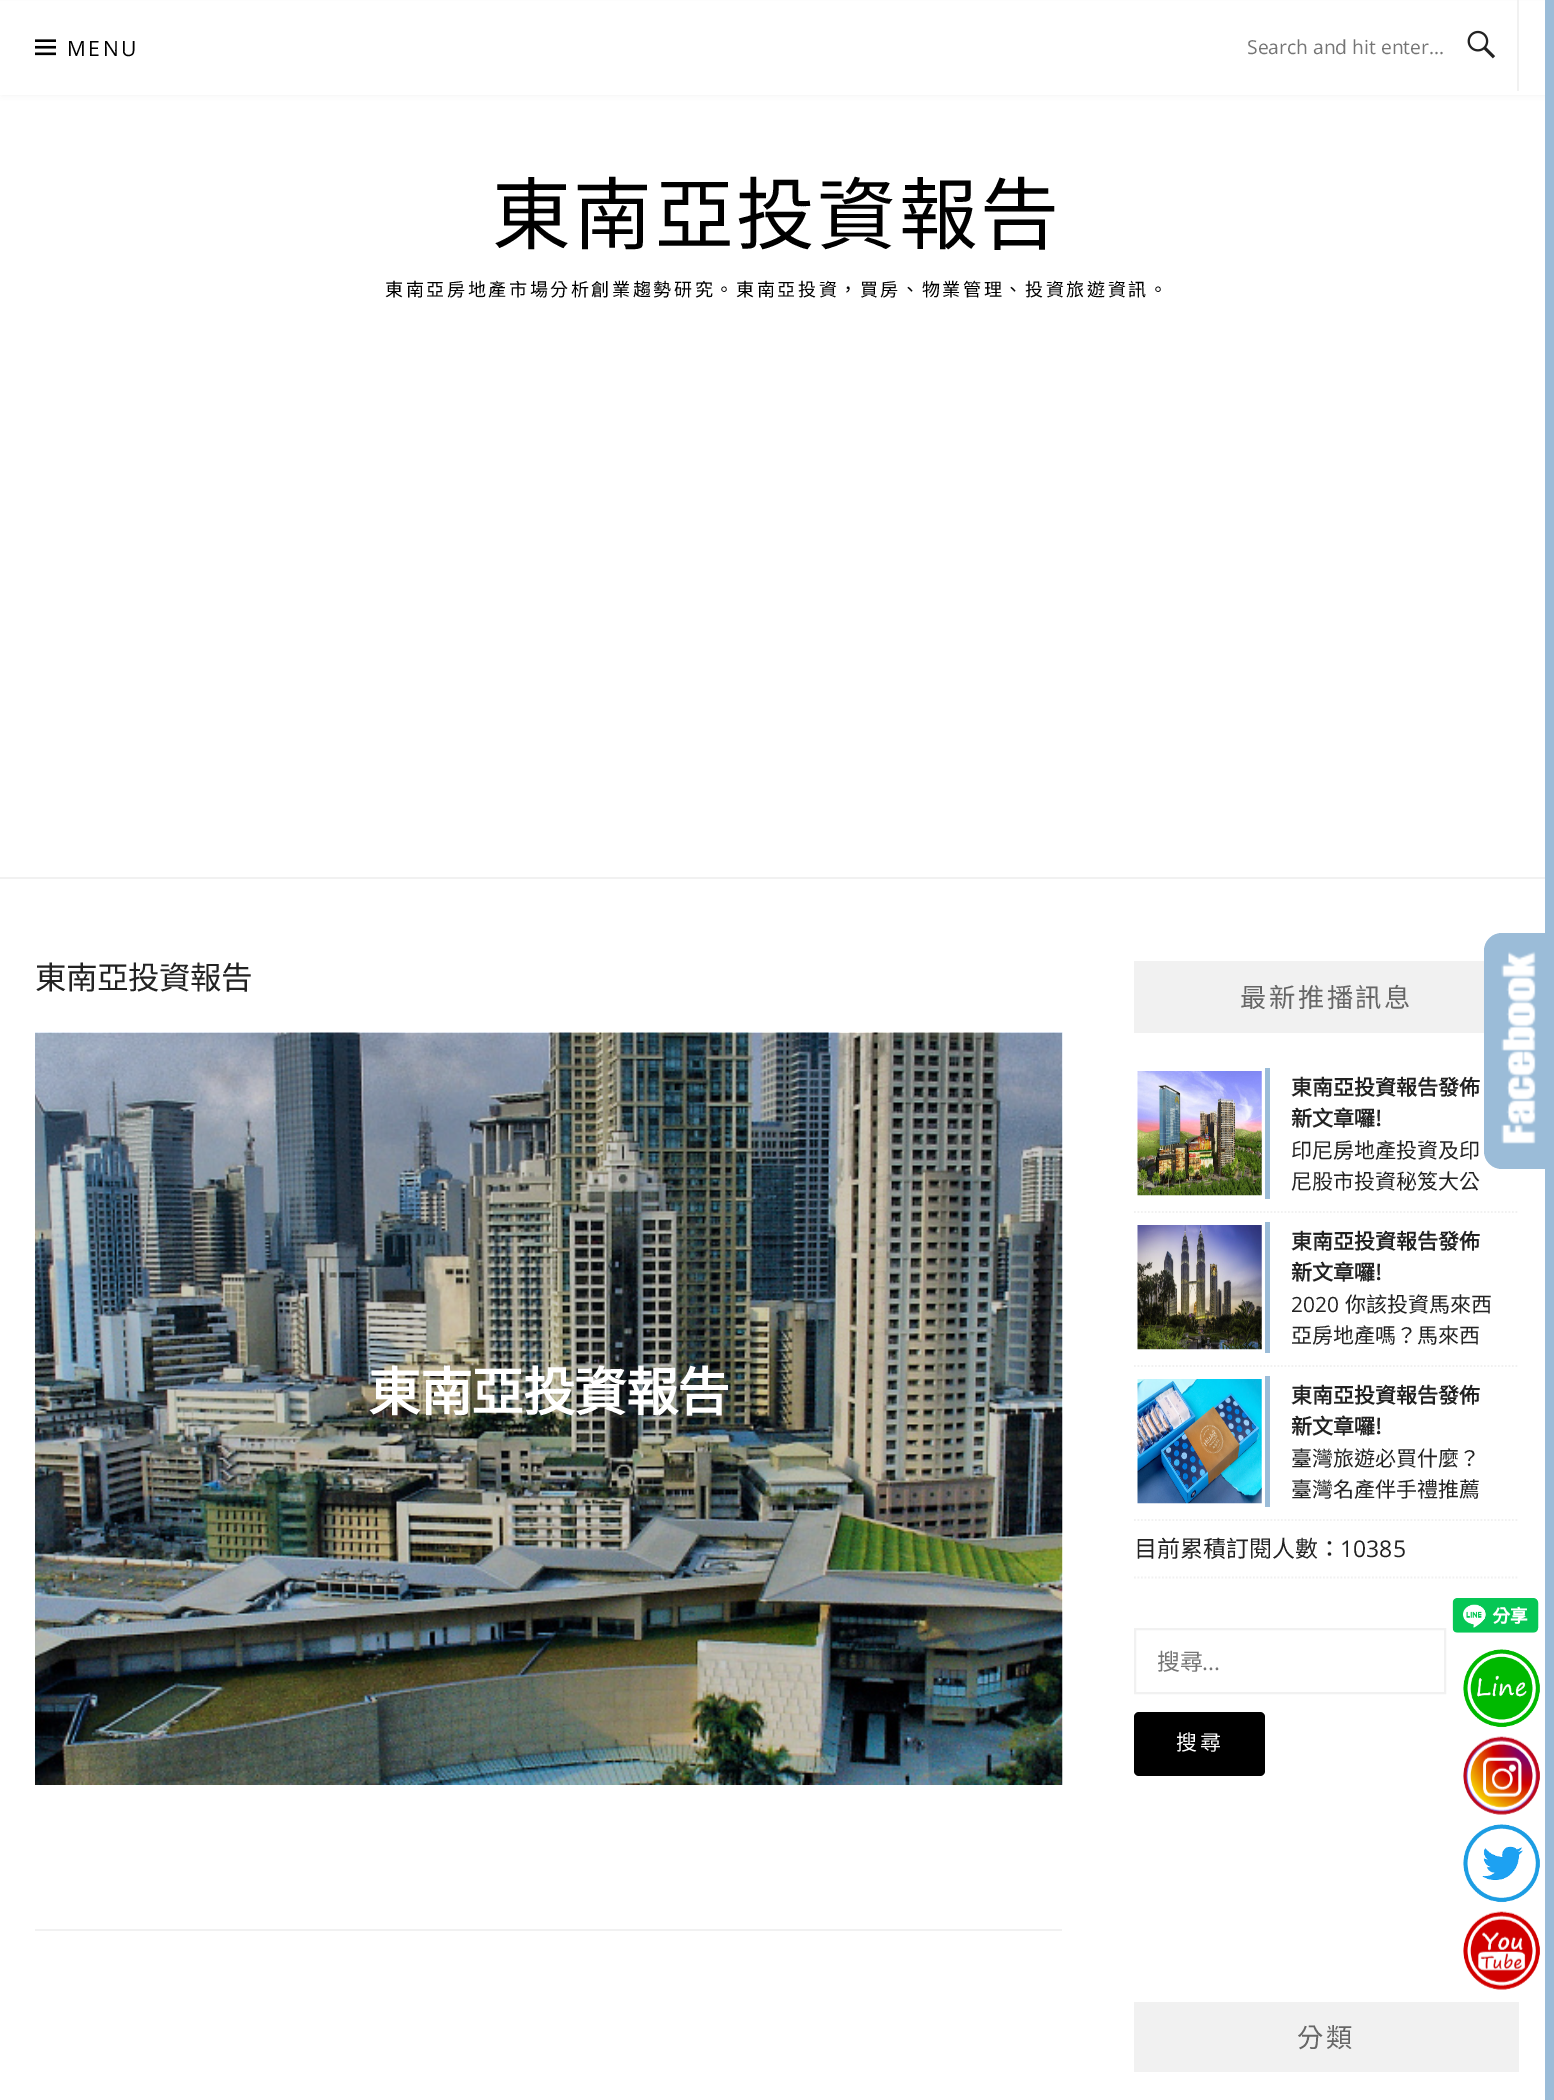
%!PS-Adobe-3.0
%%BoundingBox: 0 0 1554 2100
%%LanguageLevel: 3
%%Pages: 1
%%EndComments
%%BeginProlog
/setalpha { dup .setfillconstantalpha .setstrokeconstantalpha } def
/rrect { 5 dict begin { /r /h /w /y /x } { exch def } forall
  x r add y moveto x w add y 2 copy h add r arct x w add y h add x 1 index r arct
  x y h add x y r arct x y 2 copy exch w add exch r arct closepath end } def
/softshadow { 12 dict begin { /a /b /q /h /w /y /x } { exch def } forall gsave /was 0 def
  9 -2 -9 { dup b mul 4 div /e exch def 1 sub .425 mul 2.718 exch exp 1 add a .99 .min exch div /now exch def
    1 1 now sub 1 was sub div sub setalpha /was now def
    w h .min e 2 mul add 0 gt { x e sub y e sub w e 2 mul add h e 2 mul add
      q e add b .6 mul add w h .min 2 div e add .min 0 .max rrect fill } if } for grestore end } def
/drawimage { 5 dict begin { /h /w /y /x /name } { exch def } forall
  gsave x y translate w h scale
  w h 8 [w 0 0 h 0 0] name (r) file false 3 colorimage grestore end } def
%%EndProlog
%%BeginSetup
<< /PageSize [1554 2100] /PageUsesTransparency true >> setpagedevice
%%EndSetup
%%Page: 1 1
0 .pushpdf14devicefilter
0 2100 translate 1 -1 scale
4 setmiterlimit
1 setgray
0 0 1554 2100 rectfill
0 setgray
2 4 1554 91 0 3.5 0.05 softshadow
1 setgray
0 1 1545 94 rectfill
(images/1.raw) 35 39 21 17 drawimage
0.945 setgray
1517 0 2 91 rectfill
(images/2.raw) 1467 30 29 29 drawimage
0 877 1545 2 rectfill
35 1929 1027 2 rectfill
(images/3.raw) 35 1032 1028 753 drawimage
1134 961 350 72 rectfill
1.8 setlinewidth
[1.75 1.75] 0 setdash
newpath 1134 1212 moveto 1519 1212 lineto stroke
(images/4.raw) 1137 1071 125 125 drawimage
0.608 0.737 0.847 setrgbcolor
1265 1068 5 131 rectfill
0.945 setgray
newpath 1134 1366 moveto 1519 1366 lineto stroke
(images/5.raw) 1137 1225 125 125 drawimage
0.608 0.737 0.847 setrgbcolor
1265 1222 5 131 rectfill
0.945 setgray
newpath 1134 1520 moveto 1519 1520 lineto stroke
(images/6.raw) 1137 1379 125 125 drawimage
0.608 0.737 0.847 setrgbcolor
1265 1376 5 131 rectfill
0.945 setgray
newpath 1134 1577.5 moveto 1519 1577.5 lineto stroke
2 setlinewidth
[] 0 setdash
1135 1629 310 64 rectstroke
0 setgray
1134 1712 131 64 5 rrect fill
0.945 setgray
1134 2002 385 70 rectfill
0.608 0.737 0.847 setrgbcolor
1545 0 9 2100 rectfill
newpath 1502 933 moveto 1554 933 lineto 1554 1169 lineto 1502 1169 lineto 1492 1169 1484 1161 1484 1151 curveto 1484 951 lineto 1484 941 1492 933 1502 933 curveto closepath fill
(images/7.raw) 1501 951 35 193 drawimage
(images/8.raw) 1452 1598 87 35 drawimage
(images/9.raw) 1463 1649 77 79 drawimage
(images/10.raw) 1463 1736 77 79 drawimage
(images/11.raw) 1463 1824 77 79 drawimage
(images/12.raw) 1463 1911 77 79 drawimage
/OpenSans-Regular [21 0 0 -21 0 0] selectfont
0 setgray
67 56 moveto 2.5 0 (MENU) ashow
/OpenSans-Regular [19.25 0 0 -19.25 0 0] selectfont
0.459 setgray
1247 54 moveto (Search and hit enter...) show
/NotoSansCJKTC-Regular [78.75 0 0 -78.75 0 0] selectfont
0 setgray
492 243 moveto 2.6 0 (東南亞投資報告) ashow
/NotoSansCJKTC-Regular [18.05 0 0 -18.05 0 0] selectfont
385 296 moveto 2.6 0 (東南亞房地產市場分析創業趨勢研究。東南亞投資，買房、物業管理、投資旅遊資訊。) ashow
/NotoSansCJKTC-Regular [31.5 0 0 -31.5 0 0] selectfont
0.133 setgray
35 989 moveto -0.5 0 (東南亞投資報告) ashow
/NotoSansCJKTC-Bold [52.5 0 0 -52.5 0 0] selectfont
1 setgray
368 1411 moveto -1 0 (東南亞投資報告) ashow
/NotoSansCJKTC-Regular [26.25 0 0 -26.25 0 0] selectfont
0.4 setgray
1240 1007 moveto 2.6 0 (最新推播訊息) ashow
/NotoSansCJKTC-Bold [21 0 0 -21 0 0] selectfont
0.133 setgray
1291 1095 moveto (東南亞投資報告發佈) show
1291 1126 moveto (新文章囉!) show
/NotoSansCJKTC-Regular [21 0 0 -21 0 0] selectfont
1291 1158 moveto (印尼房地產投資及印) show
1291 1189 moveto (尼股市投資秘笈大公) show
/NotoSansCJKTC-Bold [21 0 0 -21 0 0] selectfont
1291 1249 moveto (東南亞投資報告發佈) show
1291 1280 moveto (新文章囉!) show
/OpenSans-Regular [21 0 0 -21 0 0] selectfont
1291 1312 moveto (2020) show
/NotoSansCJKTC-Regular [21 0 0 -21 0 0] selectfont
1345 1312 moveto (你該投資馬來西) show
1291 1343 moveto (亞房地產嗎？馬來西) show
/NotoSansCJKTC-Bold [21 0 0 -21 0 0] selectfont
1291 1403 moveto (東南亞投資報告發佈) show
1291 1434 moveto (新文章囉!) show
/NotoSansCJKTC-Regular [21 0 0 -21 0 0] selectfont
1291 1466 moveto (臺灣旅遊必買什麼？) show
1291 1497 moveto (臺灣名產伴手禮推薦) show
/NotoSansCJKTC-Regular [23 0 0 -23 0 0] selectfont
1134 1557 moveto (目前累積訂閱人數：) show
/OpenSans-Regular [23 0 0 -23 0 0] selectfont
1340 1557 moveto (10385) show
/NotoSansCJKTC-Regular [23 0 0 -23 0 0] selectfont
0.459 setgray
1157 1670 moveto (搜尋) show
/OpenSans-Regular [23 0 0 -23 0 0] selectfont
1202 1670 moveto (...) show
/NotoSansCJKTC-Regular [21 0 0 -21 0 0] selectfont
1 setgray
1176 1750 moveto 2.5 0 (搜尋) ashow
/NotoSansCJKTC-Regular [26.25 0 0 -26.25 0 0] selectfont
0.4 setgray
1297 2047 moveto 2.6 0 (分類) ashow
.poppdf14devicefilter showpage
%%EOF
